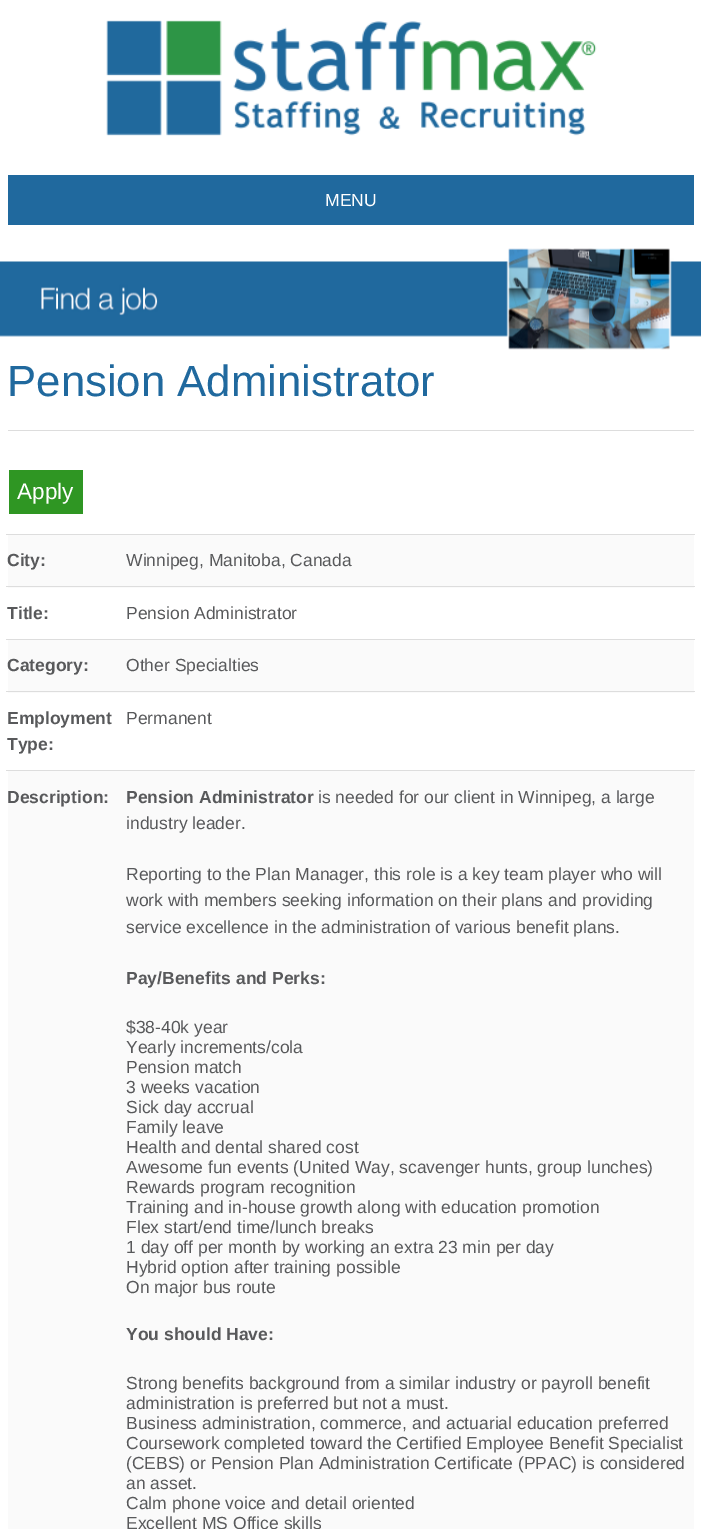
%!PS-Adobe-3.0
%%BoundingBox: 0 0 701 1529
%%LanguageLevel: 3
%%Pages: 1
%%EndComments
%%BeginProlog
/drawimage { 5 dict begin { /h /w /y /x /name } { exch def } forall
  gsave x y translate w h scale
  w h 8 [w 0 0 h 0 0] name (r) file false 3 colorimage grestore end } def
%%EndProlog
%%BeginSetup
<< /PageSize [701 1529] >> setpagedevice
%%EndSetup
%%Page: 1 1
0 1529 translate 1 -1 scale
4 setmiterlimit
1 setgray
0 0 701 1529 rectfill
(images/1.raw) 106 20 491 116 drawimage
0.125 0.412 0.62 setrgbcolor
8 175 686 50 rectfill
(images/2.raw) 0 248 701 102 drawimage
0.867 setgray
8 430 686 1 rectfill
0.184 0.588 0.137 setrgbcolor
9 470 74 44 rectfill
0.98 setgray
8 535 686 53 rectfill
0.867 setgray
6 534 689 1 rectfill
6 586 689 1 rectfill
0.98 setgray
8 640 686 53 rectfill
0.867 setgray
6 639 689 1 rectfill
6 691 689 1 rectfill
0.98 setgray
8 771 686 758 rectfill
0.867 setgray
6 770 689 1 rectfill
/LiberationSans-Regular [17.5 0 0 -17.5 0 0] selectfont
1 setgray
325 206 moveto (MENU) show
/LiberationSans-Regular [43.75 0 0 -43.75 0 0] selectfont
0.125 0.412 0.62 setrgbcolor
7 396 moveto (Pension Administrator) show
/LiberationSans-Regular [22.5 0 0 -22.5 0 0] selectfont
1 setgray
17 499 moveto (Apply) show
/LiberationSans-Bold [17.5 0 0 -17.5 0 0] selectfont
0.345 0.349 0.357 setrgbcolor
7 566 moveto (City:) show
/LiberationSans-Regular [17.5 0 0 -17.5 0 0] selectfont
126 566 moveto (Winnipeg, Manitoba, Canada) show
/LiberationSans-Bold [17.5 0 0 -17.5 0 0] selectfont
7 619 moveto (Title:) show
/LiberationSans-Regular [17.5 0 0 -17.5 0 0] selectfont
126 619 moveto (Pension Administrator) show
/LiberationSans-Bold [17.5 0 0 -17.5 0 0] selectfont
7 671 moveto (Category:) show
/LiberationSans-Regular [17.5 0 0 -17.5 0 0] selectfont
126 671 moveto (Other Specialties) show
/LiberationSans-Bold [17.5 0 0 -17.5 0 0] selectfont
7 724 moveto (Employment) show
7 750 moveto (Type:) show
/LiberationSans-Regular [17.5 0 0 -17.5 0 0] selectfont
126 724 moveto (Permanent) show
/LiberationSans-Bold [17.5 0 0 -17.5 0 0] selectfont
7 803 moveto (Description:) show
126 803 moveto (Pension Administrator) show
/LiberationSans-Regular [17.5 0 0 -17.5 0 0] selectfont
318 803 moveto (is needed for our client in Winnipeg, a large) show
126 829 moveto (industry leader.) show
126 880 moveto (Reporting to the Plan Manager, this role is a key team player who will) show
126 906 moveto (work with members seeking information on their plans and providing) show
126 933 moveto (service excellence in the administration of various benefit plans.) show
/LiberationSans-Bold [17.5 0 0 -17.5 0 0] selectfont
126 984 moveto (Pay/Benefits and Perks:) show
/LiberationSans-Regular [17.5 0 0 -17.5 0 0] selectfont
126 1033 moveto ($38-40k year) show
126 1053 moveto (Yearly increments/cola) show
126 1073 moveto (Pension match) show
126 1093 moveto (3 weeks vacation) show
126 1113 moveto (Sick day accrual) show
126 1133 moveto (Family leave) show
126 1153 moveto (Health and dental shared cost) show
126 1173 moveto (Awesome fun events \(United Way, scavenger hunts, group lunches\)) show
126 1193 moveto (Rewards program recognition) show
126 1213 moveto (Training and in-house growth along with education promotion) show
126 1233 moveto (Flex start/end time/lunch breaks) show
126 1253 moveto (1 day off per month by working an extra 23 min per day) show
126 1273 moveto (Hybrid option after training possible) show
126 1293 moveto (On major bus route) show
/LiberationSans-Bold [17.5 0 0 -17.5 0 0] selectfont
126 1340 moveto (You should Have:) show
/LiberationSans-Regular [17.5 0 0 -17.5 0 0] selectfont
126 1389 moveto (Strong benefits background from a similar industry or payroll benefit) show
126 1409 moveto (administration is preferred but not a must.) show
126 1429 moveto (Business administration, commerce, and actuarial education preferred) show
126 1449 moveto (Coursework completed toward the Certified Employee Benefit Specialist) show
126 1469 moveto (\(CEBS\) or Pension Plan Administration Certificate \(PPAC\) is considered) show
126 1489 moveto (an asset.) show
126 1509 moveto (Calm phone voice and detail oriented) show
126 1529 moveto (Excellent MS Office skills) show
showpage
%%EOF
